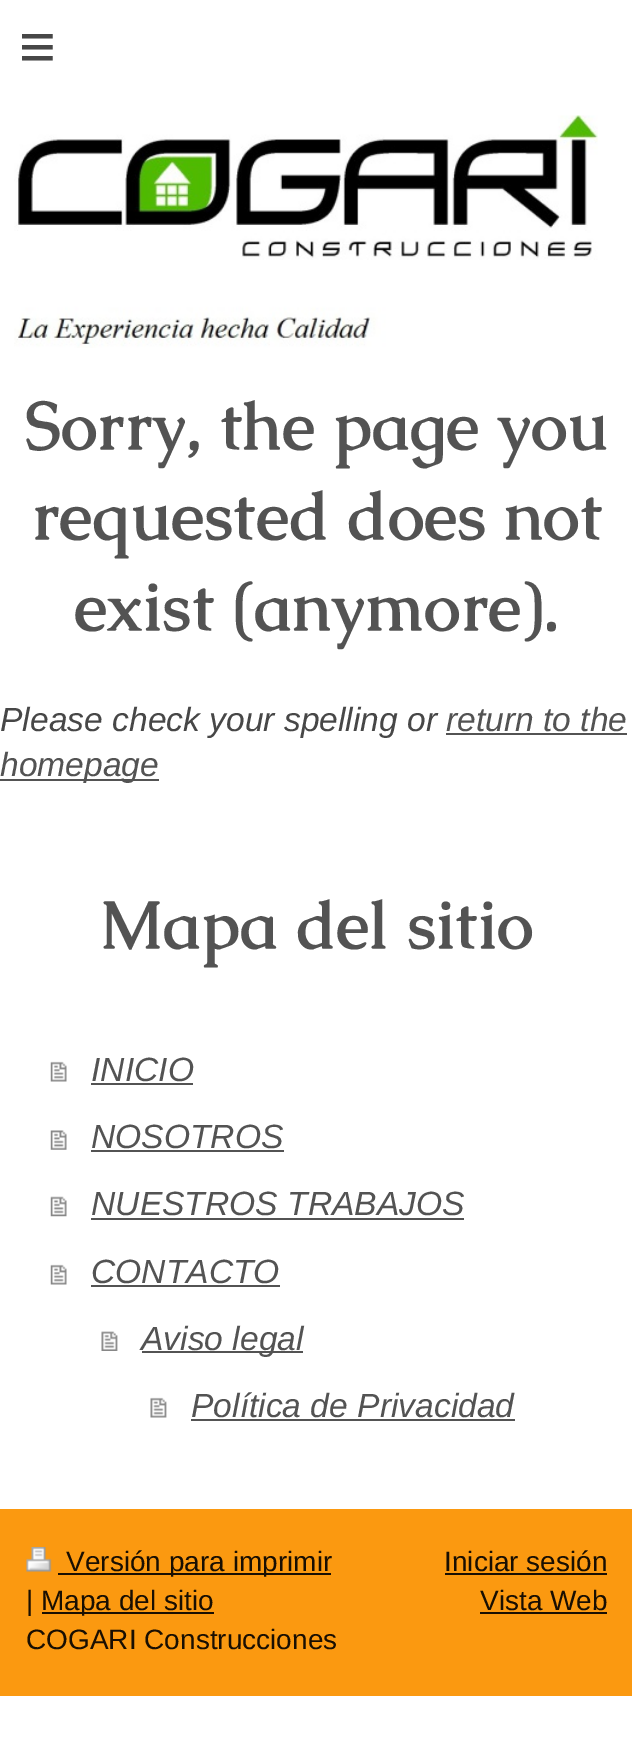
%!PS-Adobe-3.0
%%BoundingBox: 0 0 632 1762
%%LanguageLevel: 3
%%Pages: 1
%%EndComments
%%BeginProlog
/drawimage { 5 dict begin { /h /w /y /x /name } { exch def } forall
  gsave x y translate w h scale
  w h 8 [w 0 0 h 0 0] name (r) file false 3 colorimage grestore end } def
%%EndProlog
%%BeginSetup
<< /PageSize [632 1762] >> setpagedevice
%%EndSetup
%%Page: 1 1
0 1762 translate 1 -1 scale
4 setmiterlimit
1 setgray
0 0 632 1762 rectfill
(images/1.raw) 14 115 584 233 drawimage
0.325 setgray
446 733 181 2 rectfill
0 779 159 2 rectfill
(images/2.raw) 50 1061 17 21 drawimage
91 1083 102 2 rectfill
(images/3.raw) 50 1130 17 20 drawimage
91 1150 193 2 rectfill
(images/4.raw) 50 1196 17 21 drawimage
91 1218 373 2 rectfill
(images/2.raw) 50 1264 17 21 drawimage
91 1285 189 2 rectfill
(images/5.raw) 101 1331 17 20 drawimage
142 1351 161 2 rectfill
(images/6.raw) 150 1397 17 21 drawimage
191 1419 324 2 rectfill
0.984 0.6 0.063 setrgbcolor
0 1509 632 187 rectfill
(images/7.raw) 26 1547 26 25 drawimage
0.098 0.059 0.008 setrgbcolor
58 1573 273 2 rectfill
42 1612 172 2 rectfill
445 1573 162 2 rectfill
480 1612 127 2 rectfill
/LiberationSans-Regular [63 0 0 -63 0 0] selectfont
0.278 setgray
19 68 moveto 18 0 (≡) ashow
/Caudex-Bold [67.25 0 0 -67.25 0 0] selectfont
0.325 setgray
25 449 moveto (Sorry, the page you) show
32 539 moveto (requested does not) show
74 630 moveto (exist \(anymore\).) show
/LiberationSans-Italic [33.6 0 0 -33.6 0 0] selectfont
0.278 setgray
0 731 moveto (Please check your spelling or) show
0.325 setgray
446 731 moveto (return to the) show
0 776 moveto (homepage) show
/Caudex-Bold [67.25 0 0 -67.25 0 0] selectfont
100 948 moveto (Mapa del sitio) show
/LiberationSans-Italic [33.6 0 0 -33.6 0 0] selectfont
91 1081 moveto (INICIO) show
91 1148 moveto (NOSOTROS) show
91 1215 moveto (NUESTROS TRABAJOS) show
91 1283 moveto (CONTACTO) show
141 1350 moveto (Aviso legal) show
191 1417 moveto (Política de Privacidad) show
/LiberationSans-Regular [28 0 0 -28 0 0] selectfont
0.098 0.059 0.008 setrgbcolor
66 1571 moveto (Versión para imprimir) show
26 1610 moveto (|) show
41 1610 moveto (Mapa del sitio) show
26 1649 moveto (COGARI Construcciones) show
444 1571 moveto (Iniciar sesión) show
480 1610 moveto (Vista Web) show
showpage
%%EOF
